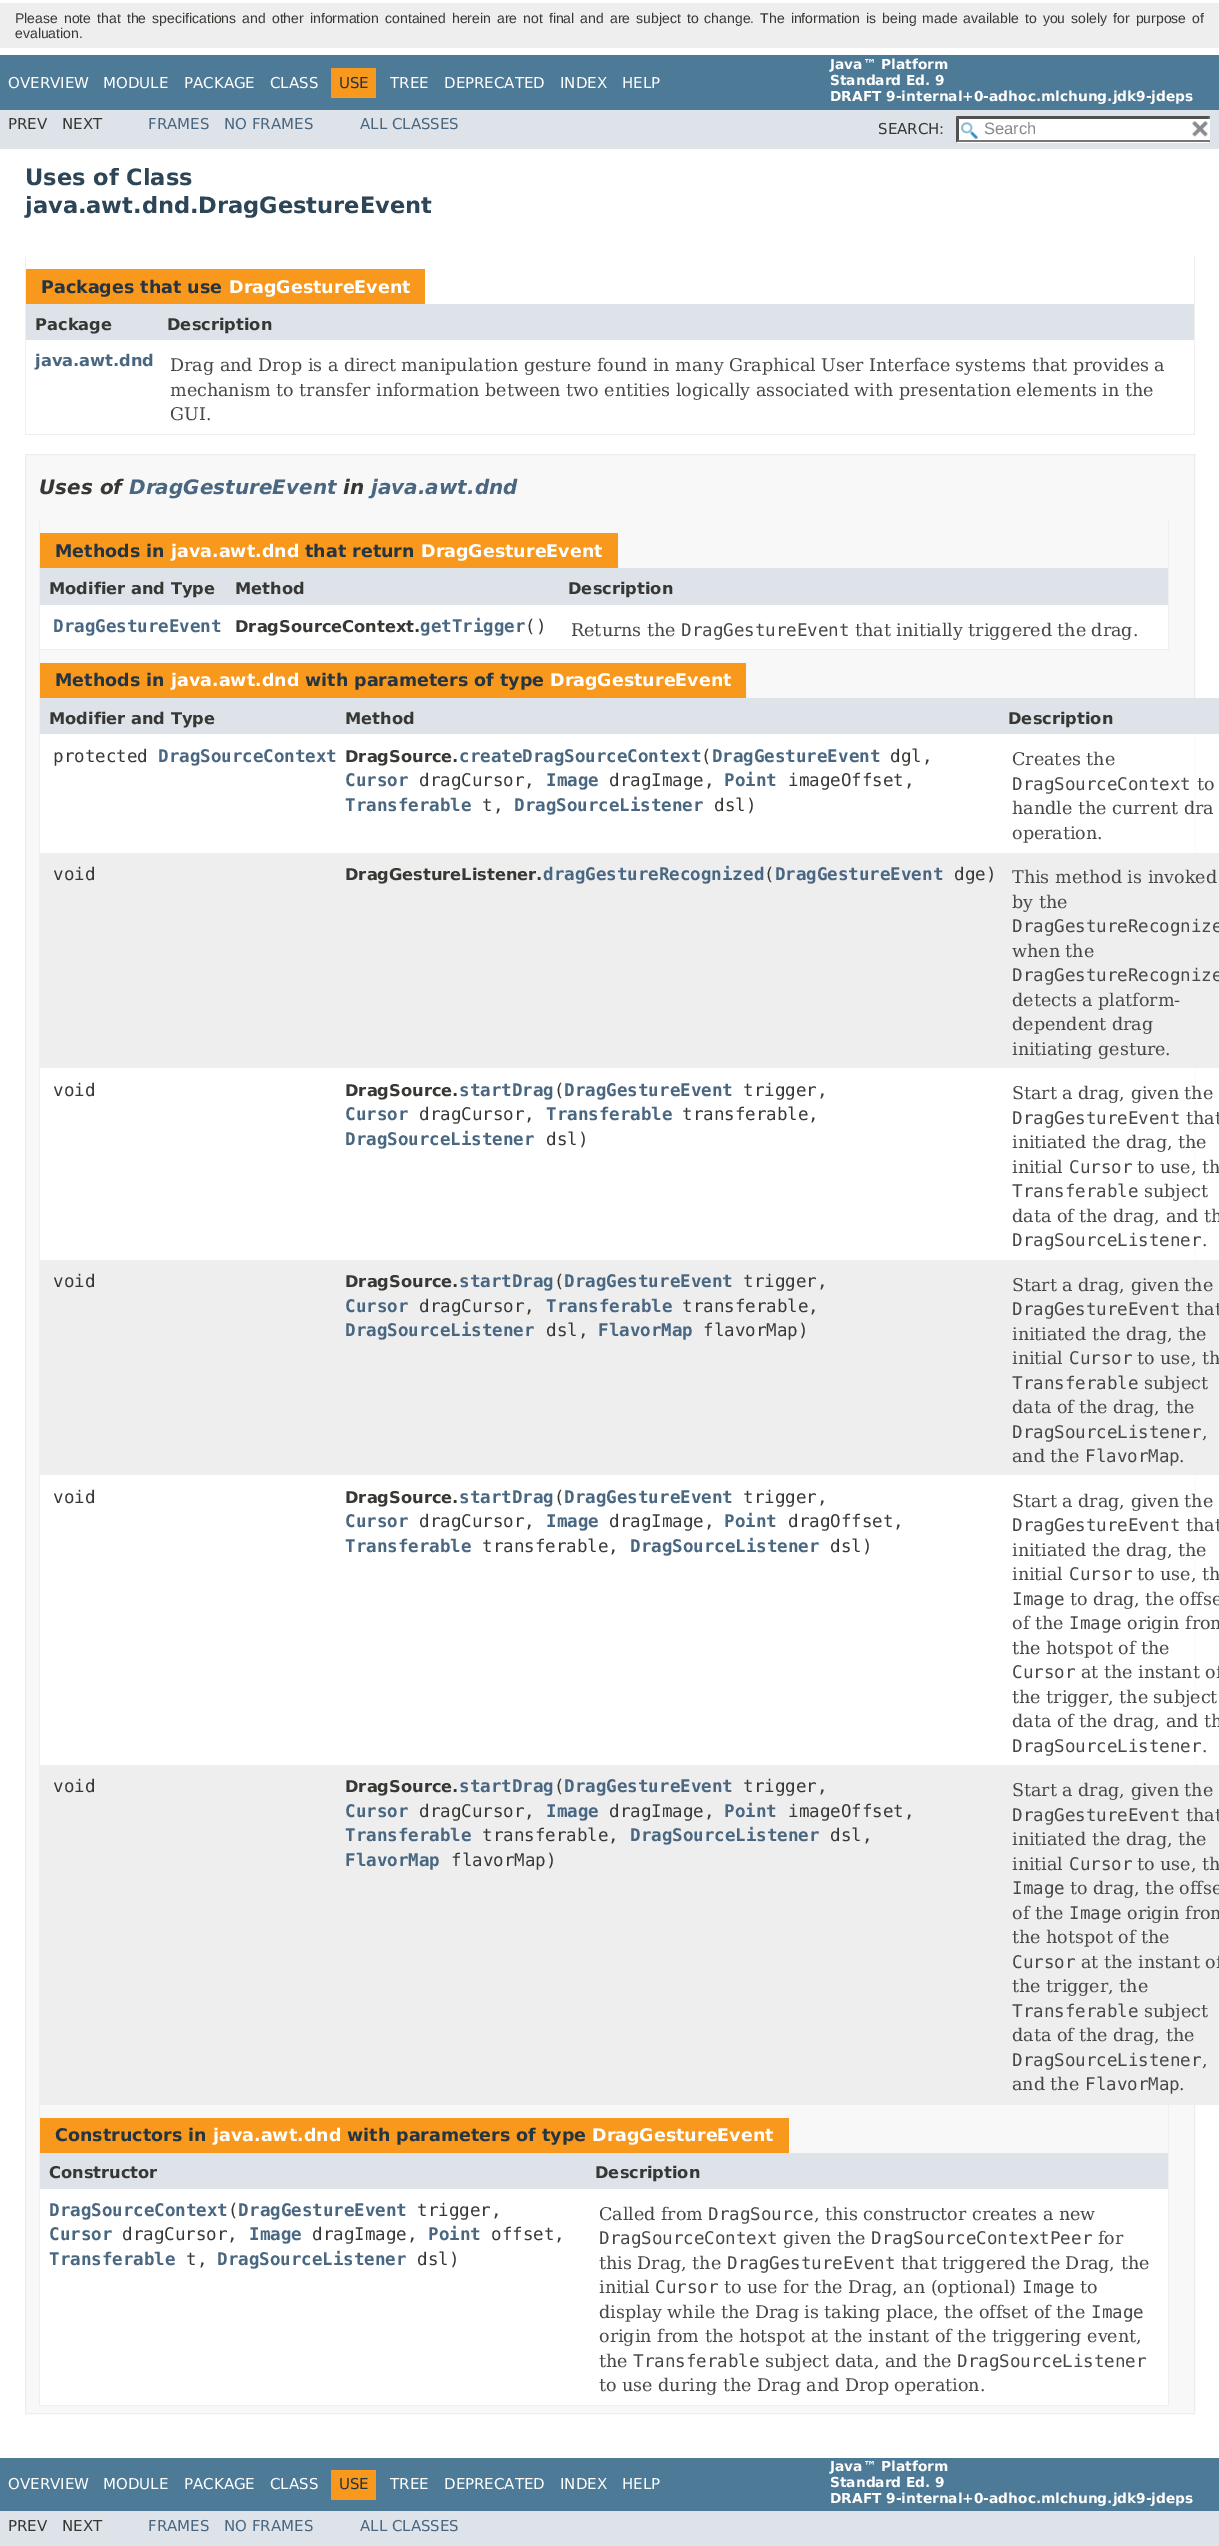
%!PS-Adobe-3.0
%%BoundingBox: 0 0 1219 2546
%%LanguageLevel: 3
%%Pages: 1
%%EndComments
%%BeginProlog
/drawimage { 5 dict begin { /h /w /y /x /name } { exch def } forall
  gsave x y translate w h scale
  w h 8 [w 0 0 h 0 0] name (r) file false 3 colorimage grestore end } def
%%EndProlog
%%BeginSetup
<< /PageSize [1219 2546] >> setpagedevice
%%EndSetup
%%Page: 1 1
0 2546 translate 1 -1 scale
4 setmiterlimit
1 setgray
0 0 1219 2546 rectfill
0.933 setgray
0 3 1219 45 rectfill
0.302 0.478 0.592 setrgbcolor
0 55 1219 55 rectfill
0.973 0.596 0.114 setrgbcolor
331 68 45 30 rectfill
0.871 0.89 0.914 setrgbcolor
0 110 1219 39 rectfill
1 setgray
956 116 254 27 rectfill
(images/1.raw) 961 122 17 17 drawimage
0.31 setgray
newpath 956 116 moveto 1210 116 lineto 1208 119 lineto 959 119 lineto closepath fill
0.463 setgray
newpath 1210 116 moveto 1210 142.5 lineto 1207.5 140 lineto 1207.5 119 lineto closepath fill
newpath 1210 142 moveto 956 142 lineto 959 140 lineto 1208 140 lineto closepath fill
0.31 setgray
newpath 956 142.5 moveto 956 116 lineto 959 119 lineto 959 140 lineto closepath fill
1 setgray
1207 119 3 21 rectfill
(images/2.raw) 1192 121 16 16 drawimage
0.933 setgray
1194 256 1 179 rectfill
25 434 1170 1 rectfill
25 256 1 179 rectfill
0.973 0.596 0.114 setrgbcolor
26 269 399 35 rectfill
0.871 0.89 0.914 setrgbcolor
26 304 1168 36 rectfill
0.973 setgray
newpath 25.5 454.5 moveto 1194.5 454.5 lineto 1194.5 2413.5 lineto 25.5 2413.5 lineto closepath gsave fill grestore
0.929 setgray
stroke
0.933 setgray
1168 520 1 130 rectfill
39 649 1130 1 rectfill
39 520 1 130 rectfill
0.973 0.596 0.114 setrgbcolor
40 533 578 35 rectfill
0.871 0.89 0.914 setrgbcolor
40 568 1128 37 rectfill
1 setgray
40 605 1128 44 rectfill
0.933 setgray
39 2104 1180 1 rectfill
39 650 1 1455 rectfill
0.973 0.596 0.114 setrgbcolor
40 663 706 35 rectfill
0.871 0.89 0.914 setrgbcolor
40 698 1179 36 rectfill
1 setgray
40 734 1155 119 rectfill
0.933 0.933 0.937 setrgbcolor
40 853 1179 215 rectfill
1 setgray
40 1068 1155 192 rectfill
0.933 0.933 0.937 setrgbcolor
40 1260 1179 215 rectfill
1 setgray
40 1475 1155 290 rectfill
0.933 0.933 0.937 setrgbcolor
40 1765 1179 339 rectfill
0.933 setgray
1168 2105 1 301 rectfill
39 2405 1130 1 rectfill
39 2105 1 301 rectfill
0.973 0.596 0.114 setrgbcolor
40 2118 749 35 rectfill
0.871 0.89 0.914 setrgbcolor
40 2153 1128 36 rectfill
1 setgray
40 2189 1128 216 rectfill
0.302 0.478 0.592 setrgbcolor
0 2458 1219 53 rectfill
0.973 0.596 0.114 setrgbcolor
331 2470 45 30 rectfill
0.871 0.89 0.914 setrgbcolor
0 2511 1219 35 rectfill
/LiberationSans-Regular [14 0 0 -14 0 0] selectfont
0.208 0.22 0.2 setrgbcolor
15 23 moveto 2.2 0 32 (Please note that the specifications and other information contained herein are not final and are subject to change. The information is being made available to you solely for purpose of) widthshow
15 38 moveto (evaluation.) show
/DejaVuSans-Regular [15 0 0 -15 0 0] selectfont
1 setgray
8 88 moveto (OVERVIEW) show
103 88 moveto (MODULE) show
184 88 moveto (PACKAGE) show
270 88 moveto (CLASS) show
0.145 0.204 0.255 setrgbcolor
339 88 moveto (USE) show
1 setgray
390 88 moveto (TREE) show
444 88 moveto (DEPRECATED) show
560 88 moveto (INDEX) show
622 88 moveto (HELP) show
/DejaVuSans-Bold [13.75 0 0 -13.75 0 0] selectfont
830 69 moveto (Java™ Platform) show
830 85 moveto (Standard Ed. 9) show
830 101 moveto (DRAFT 9-internal+0-adhoc.mlchung.jdk9-jdeps) show
/DejaVuSans-Regular [15 0 0 -15 0 0] selectfont
0.208 0.22 0.2 setrgbcolor
8 129 moveto (PREV) show
62 129 moveto (NEXT) show
0.29 0.404 0.51 setrgbcolor
148 129 moveto (FRAMES) show
224 129 moveto (NO FRAMES) show
360 129 moveto (ALL CLASSES) show
0.208 0.22 0.2 setrgbcolor
878 134 moveto (SEARCH:) show
/LiberationSans-Regular [16.5 0 0 -16.5 0 0] selectfont
0.533 setgray
984 134 moveto (Search) show
/DejaVuSans-Bold [22.5 0 0 -22.5 0 0] selectfont
0.173 0.271 0.341 setrgbcolor
25 185 moveto (Uses of Class) show
25 213 moveto (java.awt.dnd.DragGestureEvent) show
/DejaVuSans-Bold [17.5 0 0 -17.5 0 0] selectfont
0.145 0.204 0.255 setrgbcolor
41 293 moveto (Packages that use) show
1 setgray
229 293 moveto (DragGestureEvent) show
/DejaVuSans-Bold [16.25 0 0 -16.25 0 0] selectfont
0.208 0.22 0.2 setrgbcolor
35 330 moveto (Package) show
167 330 moveto (Description) show
0.29 0.404 0.51 setrgbcolor
35 366 moveto (java.awt.dnd) show
/DejaVuSerif-Regular [17.5 0 0 -17.5 0 0] selectfont
0.278 setgray
170 371 moveto (Drag and Drop is a direct manipulation gesture found in many Graphical User Interface systems that provides a) show
170 396 moveto (mechanism to transfer information between two entities logically associated with presentation elements in the) show
170 420 moveto (GUI.) show
/DejaVuSans-BoldItalic [20 0 0 -20 0 0] selectfont
0.208 0.22 0.2 setrgbcolor
39 494 moveto (Uses of) show
0.29 0.404 0.51 setrgbcolor
129 494 moveto (DragGestureEvent) show
0.208 0.22 0.2 setrgbcolor
343 494 moveto (in) show
0.29 0.404 0.51 setrgbcolor
371 494 moveto (java.awt.dnd) show
/DejaVuSans-Bold [17.5 0 0 -17.5 0 0] selectfont
0.145 0.204 0.255 setrgbcolor
55 557 moveto (Methods in) show
1 setgray
171 557 moveto (java.awt.dnd) show
0.145 0.204 0.255 setrgbcolor
305 557 moveto (that return) show
1 setgray
421 557 moveto (DragGestureEvent) show
/DejaVuSans-Bold [16.25 0 0 -16.25 0 0] selectfont
0.208 0.22 0.2 setrgbcolor
49 594 moveto (Modifier and Type) show
235 594 moveto (Method) show
568 594 moveto (Description) show
/DejaVuSansMono-Bold [17.5 0 0 -17.5 0 0] selectfont
0.29 0.404 0.51 setrgbcolor
53 632 moveto (DragGestureEvent) show
/DejaVuSans-Bold [16.25 0 0 -16.25 0 0] selectfont
0.208 0.22 0.2 setrgbcolor
235 632 moveto (DragSourceContext.) show
/DejaVuSansMono-Bold [17.5 0 0 -17.5 0 0] selectfont
0.29 0.404 0.51 setrgbcolor
420 632 moveto (getTrigger) show
/DejaVuSansMono-Regular [17.5 0 0 -17.5 0 0] selectfont
0.208 0.22 0.2 setrgbcolor
525 632 moveto (\(\)) show
/DejaVuSerif-Regular [17.5 0 0 -17.5 0 0] selectfont
0.278 setgray
571 636 moveto (Returns the) show
/DejaVuSansMono-Regular [17.5 0 0 -17.5 0 0] selectfont
681 636 moveto (DragGestureEvent) show
/DejaVuSerif-Regular [17.5 0 0 -17.5 0 0] selectfont
855 636 moveto (that initially triggered the drag.) show
/DejaVuSans-Bold [17.5 0 0 -17.5 0 0] selectfont
0.145 0.204 0.255 setrgbcolor
55 686 moveto (Methods in) show
1 setgray
171 686 moveto (java.awt.dnd) show
0.145 0.204 0.255 setrgbcolor
305 686 moveto (with parameters of type) show
1 setgray
550 686 moveto (DragGestureEvent) show
/DejaVuSans-Bold [16.25 0 0 -16.25 0 0] selectfont
0.208 0.22 0.2 setrgbcolor
49 724 moveto (Modifier and Type) show
345 724 moveto (Method) show
1008 724 moveto (Description) show
/DejaVuSansMono-Regular [17.5 0 0 -17.5 0 0] selectfont
53 762 moveto (protected) show
/DejaVuSansMono-Bold [17.5 0 0 -17.5 0 0] selectfont
0.29 0.404 0.51 setrgbcolor
158 762 moveto (DragSourceContext) show
/DejaVuSans-Bold [16.25 0 0 -16.25 0 0] selectfont
0.208 0.22 0.2 setrgbcolor
345 762 moveto (DragSource.) show
/DejaVuSansMono-Regular [17.5 0 0 -17.5 0 0] selectfont
890 762 moveto (dgl,) show
/DejaVuSansMono-Bold [17.5 0 0 -17.5 0 0] selectfont
0.29 0.404 0.51 setrgbcolor
459 762 moveto (createDragSourceContext DragGestureEvent) show
/DejaVuSansMono-Regular [17.5 0 0 -17.5 0 0] selectfont
0.208 0.22 0.2 setrgbcolor
701 762 moveto (\() show
/DejaVuSansMono-Bold [17.5 0 0 -17.5 0 0] selectfont
0.29 0.404 0.51 setrgbcolor
345 786 moveto (Cursor) show
/DejaVuSansMono-Regular [17.5 0 0 -17.5 0 0] selectfont
0.208 0.22 0.2 setrgbcolor
419 786 moveto (dragCursor,) show
/DejaVuSansMono-Bold [17.5 0 0 -17.5 0 0] selectfont
0.29 0.404 0.51 setrgbcolor
546 786 moveto (Image) show
/DejaVuSansMono-Regular [17.5 0 0 -17.5 0 0] selectfont
0.208 0.22 0.2 setrgbcolor
609 786 moveto (dragImage,) show
/DejaVuSansMono-Bold [17.5 0 0 -17.5 0 0] selectfont
0.29 0.404 0.51 setrgbcolor
724 786 moveto (Point) show
/DejaVuSansMono-Regular [17.5 0 0 -17.5 0 0] selectfont
0.208 0.22 0.2 setrgbcolor
788 786 moveto (imageOffset,) show
/DejaVuSansMono-Bold [17.5 0 0 -17.5 0 0] selectfont
0.29 0.404 0.51 setrgbcolor
345 811 moveto (Transferable) show
/DejaVuSansMono-Regular [17.5 0 0 -17.5 0 0] selectfont
0.208 0.22 0.2 setrgbcolor
482 811 moveto (t,) show
/DejaVuSansMono-Bold [17.5 0 0 -17.5 0 0] selectfont
0.29 0.404 0.51 setrgbcolor
514 811 moveto (DragSourceListener) show
/DejaVuSansMono-Regular [17.5 0 0 -17.5 0 0] selectfont
0.208 0.22 0.2 setrgbcolor
714 811 moveto (dsl\)) show
/DejaVuSerif-Regular [17.5 0 0 -17.5 0 0] selectfont
0.278 setgray
1012 765 moveto (Creates the) show
/DejaVuSansMono-Regular [17.5 0 0 -17.5 0 0] selectfont
1012 790 moveto (DragSourceContext) show
/DejaVuSerif-Regular [17.5 0 0 -17.5 0 0] selectfont
1197 790 moveto (to) show
1012 814 moveto (handle the current dra) show
1012 839 moveto (operation.) show
/DejaVuSansMono-Regular [17.5 0 0 -17.5 0 0] selectfont
0.208 0.22 0.2 setrgbcolor
53 880 moveto (void) show
/DejaVuSansMono-Bold [17.5 0 0 -17.5 0 0] selectfont
0.29 0.404 0.51 setrgbcolor
543 880 moveto (dragGestureRecognized DragGestureEvent) show
/DejaVuSans-Bold [16.25 0 0 -16.25 0 0] selectfont
0.208 0.22 0.2 setrgbcolor
345 880 moveto (DragGestureListener.) show
/DejaVuSansMono-Regular [17.5 0 0 -17.5 0 0] selectfont
764 880 moveto (\() show
954 880 moveto (dge\)) show
/DejaVuSerif-Regular [17.5 0 0 -17.5 0 0] selectfont
0.278 setgray
1012 883 moveto (This method is invoked) show
1012 908 moveto (by the) show
/DejaVuSansMono-Regular [17.5 0 0 -17.5 0 0] selectfont
1012 932 moveto (DragGestureRecognize) show
/DejaVuSerif-Regular [17.5 0 0 -17.5 0 0] selectfont
1012 957 moveto (when the) show
/DejaVuSansMono-Regular [17.5 0 0 -17.5 0 0] selectfont
1012 981 moveto (DragGestureRecognize) show
/DejaVuSerif-Regular [17.5 0 0 -17.5 0 0] selectfont
1012 1006 moveto (detects a platform-) show
1012 1030 moveto (dependent drag) show
1012 1055 moveto (initiating gesture.) show
/DejaVuSansMono-Regular [17.5 0 0 -17.5 0 0] selectfont
0.208 0.22 0.2 setrgbcolor
53 1096 moveto (void) show
/DejaVuSans-Bold [16.25 0 0 -16.25 0 0] selectfont
345 1096 moveto (DragSource.) show
/DejaVuSansMono-Regular [17.5 0 0 -17.5 0 0] selectfont
743 1096 moveto (trigger,) show
/DejaVuSansMono-Bold [17.5 0 0 -17.5 0 0] selectfont
0.29 0.404 0.51 setrgbcolor
459 1096 moveto (startDrag DragGestureEvent) show
/DejaVuSansMono-Regular [17.5 0 0 -17.5 0 0] selectfont
0.208 0.22 0.2 setrgbcolor
554 1096 moveto (\() show
/DejaVuSansMono-Bold [17.5 0 0 -17.5 0 0] selectfont
0.29 0.404 0.51 setrgbcolor
345 1120 moveto (Cursor) show
/DejaVuSansMono-Regular [17.5 0 0 -17.5 0 0] selectfont
0.208 0.22 0.2 setrgbcolor
419 1120 moveto (dragCursor,) show
/DejaVuSansMono-Bold [17.5 0 0 -17.5 0 0] selectfont
0.29 0.404 0.51 setrgbcolor
546 1120 moveto (Transferable) show
/DejaVuSansMono-Regular [17.5 0 0 -17.5 0 0] selectfont
0.208 0.22 0.2 setrgbcolor
682 1120 moveto (transferable,) show
/DejaVuSansMono-Bold [17.5 0 0 -17.5 0 0] selectfont
0.29 0.404 0.51 setrgbcolor
345 1145 moveto (DragSourceListener) show
/DejaVuSansMono-Regular [17.5 0 0 -17.5 0 0] selectfont
0.208 0.22 0.2 setrgbcolor
546 1145 moveto (dsl\)) show
/DejaVuSerif-Regular [17.5 0 0 -17.5 0 0] selectfont
0.278 setgray
1012 1099 moveto (Start a drag, given the) show
/DejaVuSansMono-Regular [17.5 0 0 -17.5 0 0] selectfont
1012 1124 moveto (DragGestureEvent) show
/DejaVuSerif-Regular [17.5 0 0 -17.5 0 0] selectfont
1186 1124 moveto (that) show
1012 1148 moveto (initiated the drag, the) show
1012 1173 moveto (initial) show
/DejaVuSansMono-Regular [17.5 0 0 -17.5 0 0] selectfont
1069 1173 moveto (Cursor) show
/DejaVuSerif-Regular [17.5 0 0 -17.5 0 0] selectfont
1137 1173 moveto (to use, th) show
/DejaVuSansMono-Regular [17.5 0 0 -17.5 0 0] selectfont
1012 1197 moveto (Transferable) show
/DejaVuSerif-Regular [17.5 0 0 -17.5 0 0] selectfont
1144 1197 moveto (subject) show
1012 1222 moveto (data of the drag, and th) show
/DejaVuSansMono-Regular [17.5 0 0 -17.5 0 0] selectfont
1012 1246 moveto (DragSourceListener) show
/DejaVuSerif-Regular [17.5 0 0 -17.5 0 0] selectfont
1202 1246 moveto (.) show
/DejaVuSansMono-Regular [17.5 0 0 -17.5 0 0] selectfont
0.208 0.22 0.2 setrgbcolor
53 1287 moveto (void) show
/DejaVuSans-Bold [16.25 0 0 -16.25 0 0] selectfont
345 1287 moveto (DragSource.) show
/DejaVuSansMono-Regular [17.5 0 0 -17.5 0 0] selectfont
743 1287 moveto (trigger,) show
/DejaVuSansMono-Bold [17.5 0 0 -17.5 0 0] selectfont
0.29 0.404 0.51 setrgbcolor
459 1287 moveto (startDrag DragGestureEvent) show
/DejaVuSansMono-Regular [17.5 0 0 -17.5 0 0] selectfont
0.208 0.22 0.2 setrgbcolor
554 1287 moveto (\() show
/DejaVuSansMono-Bold [17.5 0 0 -17.5 0 0] selectfont
0.29 0.404 0.51 setrgbcolor
345 1312 moveto (Cursor) show
/DejaVuSansMono-Regular [17.5 0 0 -17.5 0 0] selectfont
0.208 0.22 0.2 setrgbcolor
419 1312 moveto (dragCursor,) show
/DejaVuSansMono-Bold [17.5 0 0 -17.5 0 0] selectfont
0.29 0.404 0.51 setrgbcolor
546 1312 moveto (Transferable) show
/DejaVuSansMono-Regular [17.5 0 0 -17.5 0 0] selectfont
0.208 0.22 0.2 setrgbcolor
682 1312 moveto (transferable,) show
/DejaVuSansMono-Bold [17.5 0 0 -17.5 0 0] selectfont
0.29 0.404 0.51 setrgbcolor
345 1336 moveto (DragSourceListener) show
/DejaVuSansMono-Regular [17.5 0 0 -17.5 0 0] selectfont
0.208 0.22 0.2 setrgbcolor
546 1336 moveto (dsl,) show
/DejaVuSansMono-Bold [17.5 0 0 -17.5 0 0] selectfont
0.29 0.404 0.51 setrgbcolor
598 1336 moveto (FlavorMap) show
/DejaVuSansMono-Regular [17.5 0 0 -17.5 0 0] selectfont
0.208 0.22 0.2 setrgbcolor
703 1336 moveto (flavorMap\)) show
/DejaVuSerif-Regular [17.5 0 0 -17.5 0 0] selectfont
0.278 setgray
1012 1291 moveto (Start a drag, given the) show
/DejaVuSansMono-Regular [17.5 0 0 -17.5 0 0] selectfont
1012 1315 moveto (DragGestureEvent) show
/DejaVuSerif-Regular [17.5 0 0 -17.5 0 0] selectfont
1186 1315 moveto (that) show
1012 1340 moveto (initiated the drag, the) show
1012 1364 moveto (initial) show
/DejaVuSansMono-Regular [17.5 0 0 -17.5 0 0] selectfont
1069 1364 moveto (Cursor) show
/DejaVuSerif-Regular [17.5 0 0 -17.5 0 0] selectfont
1137 1364 moveto (to use, th) show
/DejaVuSansMono-Regular [17.5 0 0 -17.5 0 0] selectfont
1012 1389 moveto (Transferable) show
/DejaVuSerif-Regular [17.5 0 0 -17.5 0 0] selectfont
1144 1389 moveto (subject) show
1012 1413 moveto (data of the drag, the) show
/DejaVuSansMono-Regular [17.5 0 0 -17.5 0 0] selectfont
1012 1438 moveto (DragSourceListener) show
/DejaVuSerif-Regular [17.5 0 0 -17.5 0 0] selectfont
1202 1438 moveto (,) show
1012 1462 moveto (and the) show
/DejaVuSansMono-Regular [17.5 0 0 -17.5 0 0] selectfont
1085 1462 moveto (FlavorMap) show
/DejaVuSerif-Regular [17.5 0 0 -17.5 0 0] selectfont
1179 1462 moveto (.) show
/DejaVuSansMono-Regular [17.5 0 0 -17.5 0 0] selectfont
0.208 0.22 0.2 setrgbcolor
53 1503 moveto (void) show
/DejaVuSans-Bold [16.25 0 0 -16.25 0 0] selectfont
345 1503 moveto (DragSource.) show
/DejaVuSansMono-Regular [17.5 0 0 -17.5 0 0] selectfont
743 1503 moveto (trigger,) show
/DejaVuSansMono-Bold [17.5 0 0 -17.5 0 0] selectfont
0.29 0.404 0.51 setrgbcolor
459 1503 moveto (startDrag DragGestureEvent) show
/DejaVuSansMono-Regular [17.5 0 0 -17.5 0 0] selectfont
0.208 0.22 0.2 setrgbcolor
554 1503 moveto (\() show
/DejaVuSansMono-Bold [17.5 0 0 -17.5 0 0] selectfont
0.29 0.404 0.51 setrgbcolor
345 1527 moveto (Cursor) show
/DejaVuSansMono-Regular [17.5 0 0 -17.5 0 0] selectfont
0.208 0.22 0.2 setrgbcolor
419 1527 moveto (dragCursor,) show
/DejaVuSansMono-Bold [17.5 0 0 -17.5 0 0] selectfont
0.29 0.404 0.51 setrgbcolor
546 1527 moveto (Image) show
/DejaVuSansMono-Regular [17.5 0 0 -17.5 0 0] selectfont
0.208 0.22 0.2 setrgbcolor
609 1527 moveto (dragImage,) show
/DejaVuSansMono-Bold [17.5 0 0 -17.5 0 0] selectfont
0.29 0.404 0.51 setrgbcolor
724 1527 moveto (Point) show
/DejaVuSansMono-Regular [17.5 0 0 -17.5 0 0] selectfont
0.208 0.22 0.2 setrgbcolor
788 1527 moveto (dragOffset,) show
/DejaVuSansMono-Bold [17.5 0 0 -17.5 0 0] selectfont
0.29 0.404 0.51 setrgbcolor
345 1552 moveto (Transferable) show
/DejaVuSansMono-Regular [17.5 0 0 -17.5 0 0] selectfont
0.208 0.22 0.2 setrgbcolor
482 1552 moveto (transferable,) show
/DejaVuSansMono-Bold [17.5 0 0 -17.5 0 0] selectfont
0.29 0.404 0.51 setrgbcolor
630 1552 moveto (DragSourceListener) show
/DejaVuSansMono-Regular [17.5 0 0 -17.5 0 0] selectfont
0.208 0.22 0.2 setrgbcolor
830 1552 moveto (dsl\)) show
/DejaVuSerif-Regular [17.5 0 0 -17.5 0 0] selectfont
0.278 setgray
1012 1507 moveto (Start a drag, given the) show
/DejaVuSansMono-Regular [17.5 0 0 -17.5 0 0] selectfont
1012 1531 moveto (DragGestureEvent) show
/DejaVuSerif-Regular [17.5 0 0 -17.5 0 0] selectfont
1186 1531 moveto (that) show
1012 1556 moveto (initiated the drag, the) show
1012 1580 moveto (initial) show
/DejaVuSansMono-Regular [17.5 0 0 -17.5 0 0] selectfont
1069 1580 moveto (Cursor) show
/DejaVuSerif-Regular [17.5 0 0 -17.5 0 0] selectfont
1137 1580 moveto (to use, th) show
/DejaVuSansMono-Regular [17.5 0 0 -17.5 0 0] selectfont
1012 1605 moveto (Image) show
/DejaVuSerif-Regular [17.5 0 0 -17.5 0 0] selectfont
1070 1605 moveto (to drag, the offse) show
1012 1629 moveto (of the) show
/DejaVuSansMono-Regular [17.5 0 0 -17.5 0 0] selectfont
1069 1629 moveto (Image) show
/DejaVuSerif-Regular [17.5 0 0 -17.5 0 0] selectfont
1127 1629 moveto (origin from) show
1012 1654 moveto (the hotspot of the) show
/DejaVuSansMono-Regular [17.5 0 0 -17.5 0 0] selectfont
1012 1678 moveto (Cursor) show
/DejaVuSerif-Regular [17.5 0 0 -17.5 0 0] selectfont
1081 1678 moveto (at the instant of) show
1012 1703 moveto (the trigger, the subject) show
1012 1727 moveto (data of the drag, and th) show
/DejaVuSansMono-Regular [17.5 0 0 -17.5 0 0] selectfont
1012 1752 moveto (DragSourceListener) show
/DejaVuSerif-Regular [17.5 0 0 -17.5 0 0] selectfont
1202 1752 moveto (.) show
/DejaVuSansMono-Regular [17.5 0 0 -17.5 0 0] selectfont
0.208 0.22 0.2 setrgbcolor
53 1792 moveto (void) show
/DejaVuSans-Bold [16.25 0 0 -16.25 0 0] selectfont
345 1792 moveto (DragSource.) show
/DejaVuSansMono-Regular [17.5 0 0 -17.5 0 0] selectfont
743 1792 moveto (trigger,) show
/DejaVuSansMono-Bold [17.5 0 0 -17.5 0 0] selectfont
0.29 0.404 0.51 setrgbcolor
459 1792 moveto (startDrag DragGestureEvent) show
/DejaVuSansMono-Regular [17.5 0 0 -17.5 0 0] selectfont
0.208 0.22 0.2 setrgbcolor
554 1792 moveto (\() show
/DejaVuSansMono-Bold [17.5 0 0 -17.5 0 0] selectfont
0.29 0.404 0.51 setrgbcolor
345 1817 moveto (Cursor) show
/DejaVuSansMono-Regular [17.5 0 0 -17.5 0 0] selectfont
0.208 0.22 0.2 setrgbcolor
419 1817 moveto (dragCursor,) show
/DejaVuSansMono-Bold [17.5 0 0 -17.5 0 0] selectfont
0.29 0.404 0.51 setrgbcolor
546 1817 moveto (Image) show
/DejaVuSansMono-Regular [17.5 0 0 -17.5 0 0] selectfont
0.208 0.22 0.2 setrgbcolor
609 1817 moveto (dragImage,) show
/DejaVuSansMono-Bold [17.5 0 0 -17.5 0 0] selectfont
0.29 0.404 0.51 setrgbcolor
724 1817 moveto (Point) show
/DejaVuSansMono-Regular [17.5 0 0 -17.5 0 0] selectfont
0.208 0.22 0.2 setrgbcolor
788 1817 moveto (imageOffset,) show
/DejaVuSansMono-Bold [17.5 0 0 -17.5 0 0] selectfont
0.29 0.404 0.51 setrgbcolor
345 1841 moveto (Transferable) show
/DejaVuSansMono-Regular [17.5 0 0 -17.5 0 0] selectfont
0.208 0.22 0.2 setrgbcolor
482 1841 moveto (transferable,) show
/DejaVuSansMono-Bold [17.5 0 0 -17.5 0 0] selectfont
0.29 0.404 0.51 setrgbcolor
630 1841 moveto (DragSourceListener) show
/DejaVuSansMono-Regular [17.5 0 0 -17.5 0 0] selectfont
0.208 0.22 0.2 setrgbcolor
830 1841 moveto (dsl,) show
/DejaVuSansMono-Bold [17.5 0 0 -17.5 0 0] selectfont
0.29 0.404 0.51 setrgbcolor
345 1866 moveto (FlavorMap) show
/DejaVuSansMono-Regular [17.5 0 0 -17.5 0 0] selectfont
0.208 0.22 0.2 setrgbcolor
451 1866 moveto (flavorMap\)) show
/DejaVuSerif-Regular [17.5 0 0 -17.5 0 0] selectfont
0.278 setgray
1012 1796 moveto (Start a drag, given the) show
/DejaVuSansMono-Regular [17.5 0 0 -17.5 0 0] selectfont
1012 1821 moveto (DragGestureEvent) show
/DejaVuSerif-Regular [17.5 0 0 -17.5 0 0] selectfont
1186 1821 moveto (that) show
1012 1845 moveto (initiated the drag, the) show
1012 1870 moveto (initial) show
/DejaVuSansMono-Regular [17.5 0 0 -17.5 0 0] selectfont
1069 1870 moveto (Cursor) show
/DejaVuSerif-Regular [17.5 0 0 -17.5 0 0] selectfont
1137 1870 moveto (to use, th) show
/DejaVuSansMono-Regular [17.5 0 0 -17.5 0 0] selectfont
1012 1894 moveto (Image) show
/DejaVuSerif-Regular [17.5 0 0 -17.5 0 0] selectfont
1070 1894 moveto (to drag, the offse) show
1012 1919 moveto (of the) show
/DejaVuSansMono-Regular [17.5 0 0 -17.5 0 0] selectfont
1069 1919 moveto (Image) show
/DejaVuSerif-Regular [17.5 0 0 -17.5 0 0] selectfont
1127 1919 moveto (origin from) show
1012 1943 moveto (the hotspot of the) show
/DejaVuSansMono-Regular [17.5 0 0 -17.5 0 0] selectfont
1012 1968 moveto (Cursor) show
/DejaVuSerif-Regular [17.5 0 0 -17.5 0 0] selectfont
1081 1968 moveto (at the instant of) show
1012 1992 moveto (the trigger, the) show
/DejaVuSansMono-Regular [17.5 0 0 -17.5 0 0] selectfont
1012 2017 moveto (Transferable) show
/DejaVuSerif-Regular [17.5 0 0 -17.5 0 0] selectfont
1144 2017 moveto (subject) show
1012 2041 moveto (data of the drag, the) show
/DejaVuSansMono-Regular [17.5 0 0 -17.5 0 0] selectfont
1012 2066 moveto (DragSourceListener) show
/DejaVuSerif-Regular [17.5 0 0 -17.5 0 0] selectfont
1202 2066 moveto (,) show
1012 2090 moveto (and the) show
/DejaVuSansMono-Regular [17.5 0 0 -17.5 0 0] selectfont
1085 2090 moveto (FlavorMap) show
/DejaVuSerif-Regular [17.5 0 0 -17.5 0 0] selectfont
1179 2090 moveto (.) show
/DejaVuSans-Bold [17.5 0 0 -17.5 0 0] selectfont
0.145 0.204 0.255 setrgbcolor
55 2141 moveto (Constructors in) show
1 setgray
213 2141 moveto (java.awt.dnd) show
0.145 0.204 0.255 setrgbcolor
347 2141 moveto (with parameters of type) show
1 setgray
592 2141 moveto (DragGestureEvent) show
/DejaVuSans-Bold [16.25 0 0 -16.25 0 0] selectfont
0.208 0.22 0.2 setrgbcolor
49 2178 moveto (Constructor) show
595 2178 moveto (Description) show
/DejaVuSansMono-Regular [17.5 0 0 -17.5 0 0] selectfont
417 2216 moveto (trigger,) show
/DejaVuSansMono-Bold [17.5 0 0 -17.5 0 0] selectfont
0.29 0.404 0.51 setrgbcolor
49 2216 moveto (DragSourceContext DragGestureEvent) show
/DejaVuSansMono-Regular [17.5 0 0 -17.5 0 0] selectfont
0.208 0.22 0.2 setrgbcolor
228 2216 moveto (\() show
/DejaVuSansMono-Bold [17.5 0 0 -17.5 0 0] selectfont
0.29 0.404 0.51 setrgbcolor
49 2240 moveto (Cursor) show
/DejaVuSansMono-Regular [17.5 0 0 -17.5 0 0] selectfont
0.208 0.22 0.2 setrgbcolor
122 2240 moveto (dragCursor,) show
/DejaVuSansMono-Bold [17.5 0 0 -17.5 0 0] selectfont
0.29 0.404 0.51 setrgbcolor
249 2240 moveto (Image) show
/DejaVuSansMono-Regular [17.5 0 0 -17.5 0 0] selectfont
0.208 0.22 0.2 setrgbcolor
312 2240 moveto (dragImage,) show
/DejaVuSansMono-Bold [17.5 0 0 -17.5 0 0] selectfont
0.29 0.404 0.51 setrgbcolor
428 2240 moveto (Point) show
/DejaVuSansMono-Regular [17.5 0 0 -17.5 0 0] selectfont
0.208 0.22 0.2 setrgbcolor
491 2240 moveto (offset,) show
/DejaVuSansMono-Bold [17.5 0 0 -17.5 0 0] selectfont
0.29 0.404 0.51 setrgbcolor
49 2265 moveto (Transferable) show
/DejaVuSansMono-Regular [17.5 0 0 -17.5 0 0] selectfont
0.208 0.22 0.2 setrgbcolor
186 2265 moveto (t,) show
/DejaVuSansMono-Bold [17.5 0 0 -17.5 0 0] selectfont
0.29 0.404 0.51 setrgbcolor
217 2265 moveto (DragSourceListener) show
/DejaVuSansMono-Regular [17.5 0 0 -17.5 0 0] selectfont
0.208 0.22 0.2 setrgbcolor
417 2265 moveto (dsl\)) show
/DejaVuSerif-Regular [17.5 0 0 -17.5 0 0] selectfont
0.278 setgray
599 2220 moveto (Called from) show
/DejaVuSansMono-Regular [17.5 0 0 -17.5 0 0] selectfont
708 2220 moveto (DragSource) show
/DejaVuSerif-Regular [17.5 0 0 -17.5 0 0] selectfont
814 2220 moveto (, this constructor creates a new) show
/DejaVuSansMono-Regular [17.5 0 0 -17.5 0 0] selectfont
599 2244 moveto (DragSourceContext) show
/DejaVuSerif-Regular [17.5 0 0 -17.5 0 0] selectfont
783 2244 moveto (given the) show
/DejaVuSansMono-Regular [17.5 0 0 -17.5 0 0] selectfont
871 2244 moveto (DragSourceContextPeer) show
/DejaVuSerif-Regular [17.5 0 0 -17.5 0 0] selectfont
1098 2244 moveto (for) show
599 2269 moveto (this Drag, the) show
/DejaVuSansMono-Regular [17.5 0 0 -17.5 0 0] selectfont
727 2269 moveto (DragGestureEvent) show
/DejaVuSerif-Regular [17.5 0 0 -17.5 0 0] selectfont
901 2269 moveto (that triggered the Drag, the) show
599 2293 moveto (initial) show
/DejaVuSansMono-Regular [17.5 0 0 -17.5 0 0] selectfont
655 2293 moveto (Cursor) show
/DejaVuSerif-Regular [17.5 0 0 -17.5 0 0] selectfont
724 2293 moveto (to use for the Drag, an \(optional\)) show
/DejaVuSansMono-Regular [17.5 0 0 -17.5 0 0] selectfont
1022 2293 moveto (Image) show
/DejaVuSerif-Regular [17.5 0 0 -17.5 0 0] selectfont
1080 2293 moveto (to) show
599 2318 moveto (display while the Drag is taking place, the offset of the) show
/DejaVuSansMono-Regular [17.5 0 0 -17.5 0 0] selectfont
1091 2318 moveto (Image) show
/DejaVuSerif-Regular [17.5 0 0 -17.5 0 0] selectfont
599 2342 moveto (origin from the hotspot at the instant of the triggering event,) show
599 2367 moveto (the) show
/DejaVuSansMono-Regular [17.5 0 0 -17.5 0 0] selectfont
633 2367 moveto (Transferable) show
/DejaVuSerif-Regular [17.5 0 0 -17.5 0 0] selectfont
765 2367 moveto (subject data, and the) show
/DejaVuSansMono-Regular [17.5 0 0 -17.5 0 0] selectfont
957 2367 moveto (DragSourceListener) show
/DejaVuSerif-Regular [17.5 0 0 -17.5 0 0] selectfont
599 2391 moveto (to use during the Drag and Drop operation.) show
/DejaVuSans-Regular [15 0 0 -15 0 0] selectfont
1 setgray
8 2489 moveto (OVERVIEW) show
103 2489 moveto (MODULE) show
184 2489 moveto (PACKAGE) show
270 2489 moveto (CLASS) show
0.145 0.204 0.255 setrgbcolor
339 2489 moveto (USE) show
1 setgray
390 2489 moveto (TREE) show
444 2489 moveto (DEPRECATED) show
560 2489 moveto (INDEX) show
622 2489 moveto (HELP) show
/DejaVuSans-Bold [13.75 0 0 -13.75 0 0] selectfont
830 2471 moveto (Java™ Platform) show
830 2487 moveto (Standard Ed. 9) show
830 2503 moveto (DRAFT 9-internal+0-adhoc.mlchung.jdk9-jdeps) show
/DejaVuSans-Regular [15 0 0 -15 0 0] selectfont
0.208 0.22 0.2 setrgbcolor
8 2531 moveto (PREV) show
62 2531 moveto (NEXT) show
0.29 0.404 0.51 setrgbcolor
148 2531 moveto (FRAMES) show
224 2531 moveto (NO FRAMES) show
360 2531 moveto (ALL CLASSES) show
showpage
%%EOF
